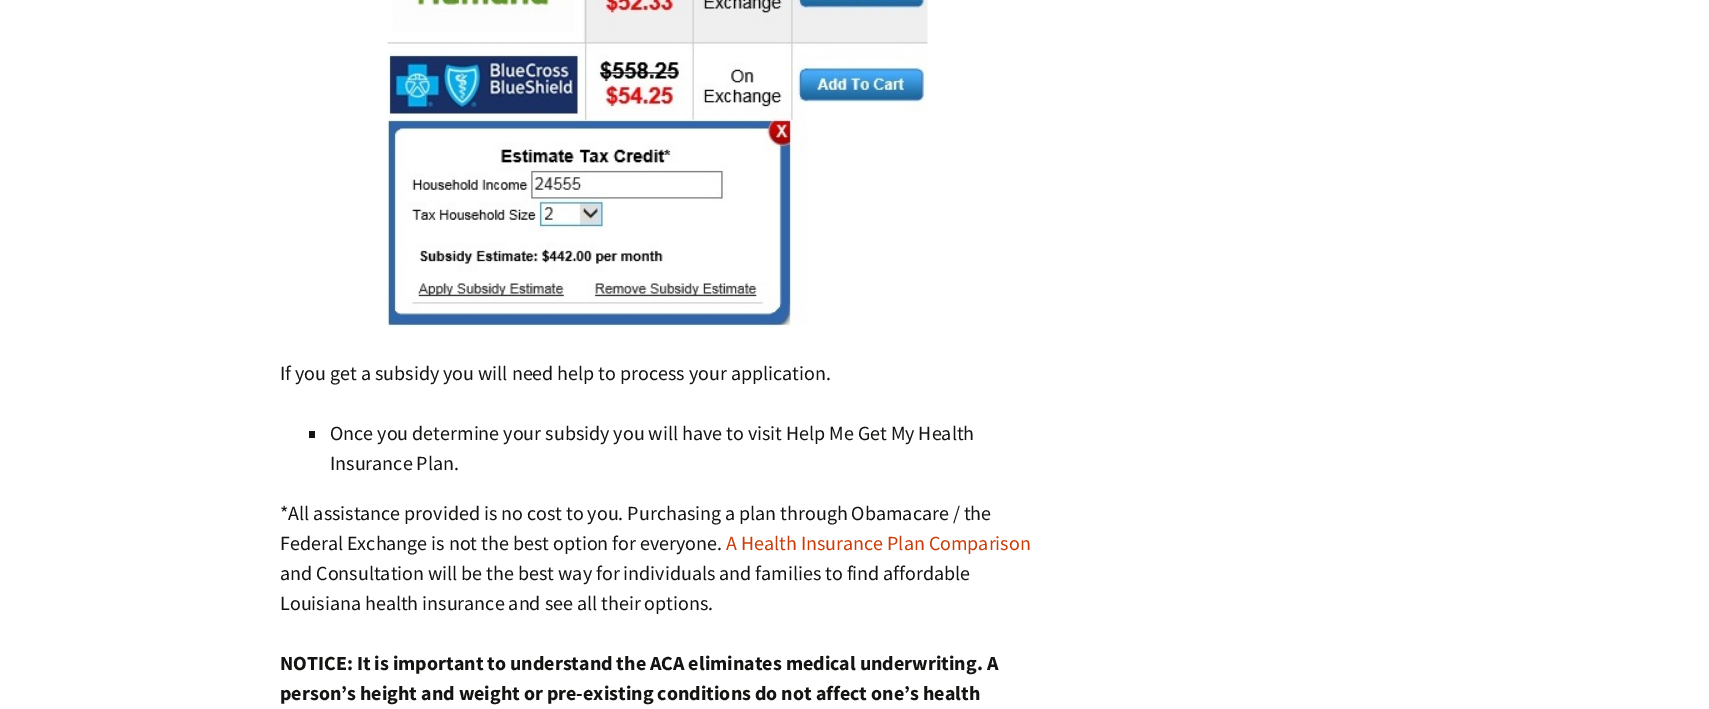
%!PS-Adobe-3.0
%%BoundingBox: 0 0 1709 709
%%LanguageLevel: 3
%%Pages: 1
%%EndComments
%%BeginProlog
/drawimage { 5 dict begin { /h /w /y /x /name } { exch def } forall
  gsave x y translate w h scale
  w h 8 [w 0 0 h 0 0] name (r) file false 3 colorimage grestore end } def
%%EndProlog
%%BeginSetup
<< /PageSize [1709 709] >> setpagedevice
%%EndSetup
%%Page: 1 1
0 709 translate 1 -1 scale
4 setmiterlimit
1 setgray
0 0 1709 709 rectfill
(images/1.raw) 387 0 541 328 drawimage
0.078 0.078 0.071 setrgbcolor
309 431 6 7 rectfill
/SourceSansPro-Regular [20 0 0 -20 0 0] selectfont
280 380 moveto (If you get a subsidy you will need help to process your application.) show
330 440 moveto (Once you determine your subsidy you will have to visit Help Me Get My Health) show
330 470 moveto (Insurance Plan.) show
280 520 moveto (*All assistance provided is no cost to you. Purchasing a plan through Obamacare / the) show
280 550 moveto (Federal Exchange is not the best option for everyone.) show
0.792 0.235 0.031 setrgbcolor
726 550 moveto (A Health Insurance Plan Comparison) show
0.078 0.078 0.071 setrgbcolor
280 580 moveto (and Consultation will be the best way for individuals and families to find affordable) show
280 610 moveto (Louisiana health insurance and see all their options.) show
/SourceSansPro-Bold [20 0 0 -20 0 0] selectfont
280 670 moveto (NOTICE: It is important to understand the ACA eliminates medical underwriting. A) show
280 700 moveto (person’s height and weight or pre-existing conditions do not affect one’s health) show
showpage
%%EOF
